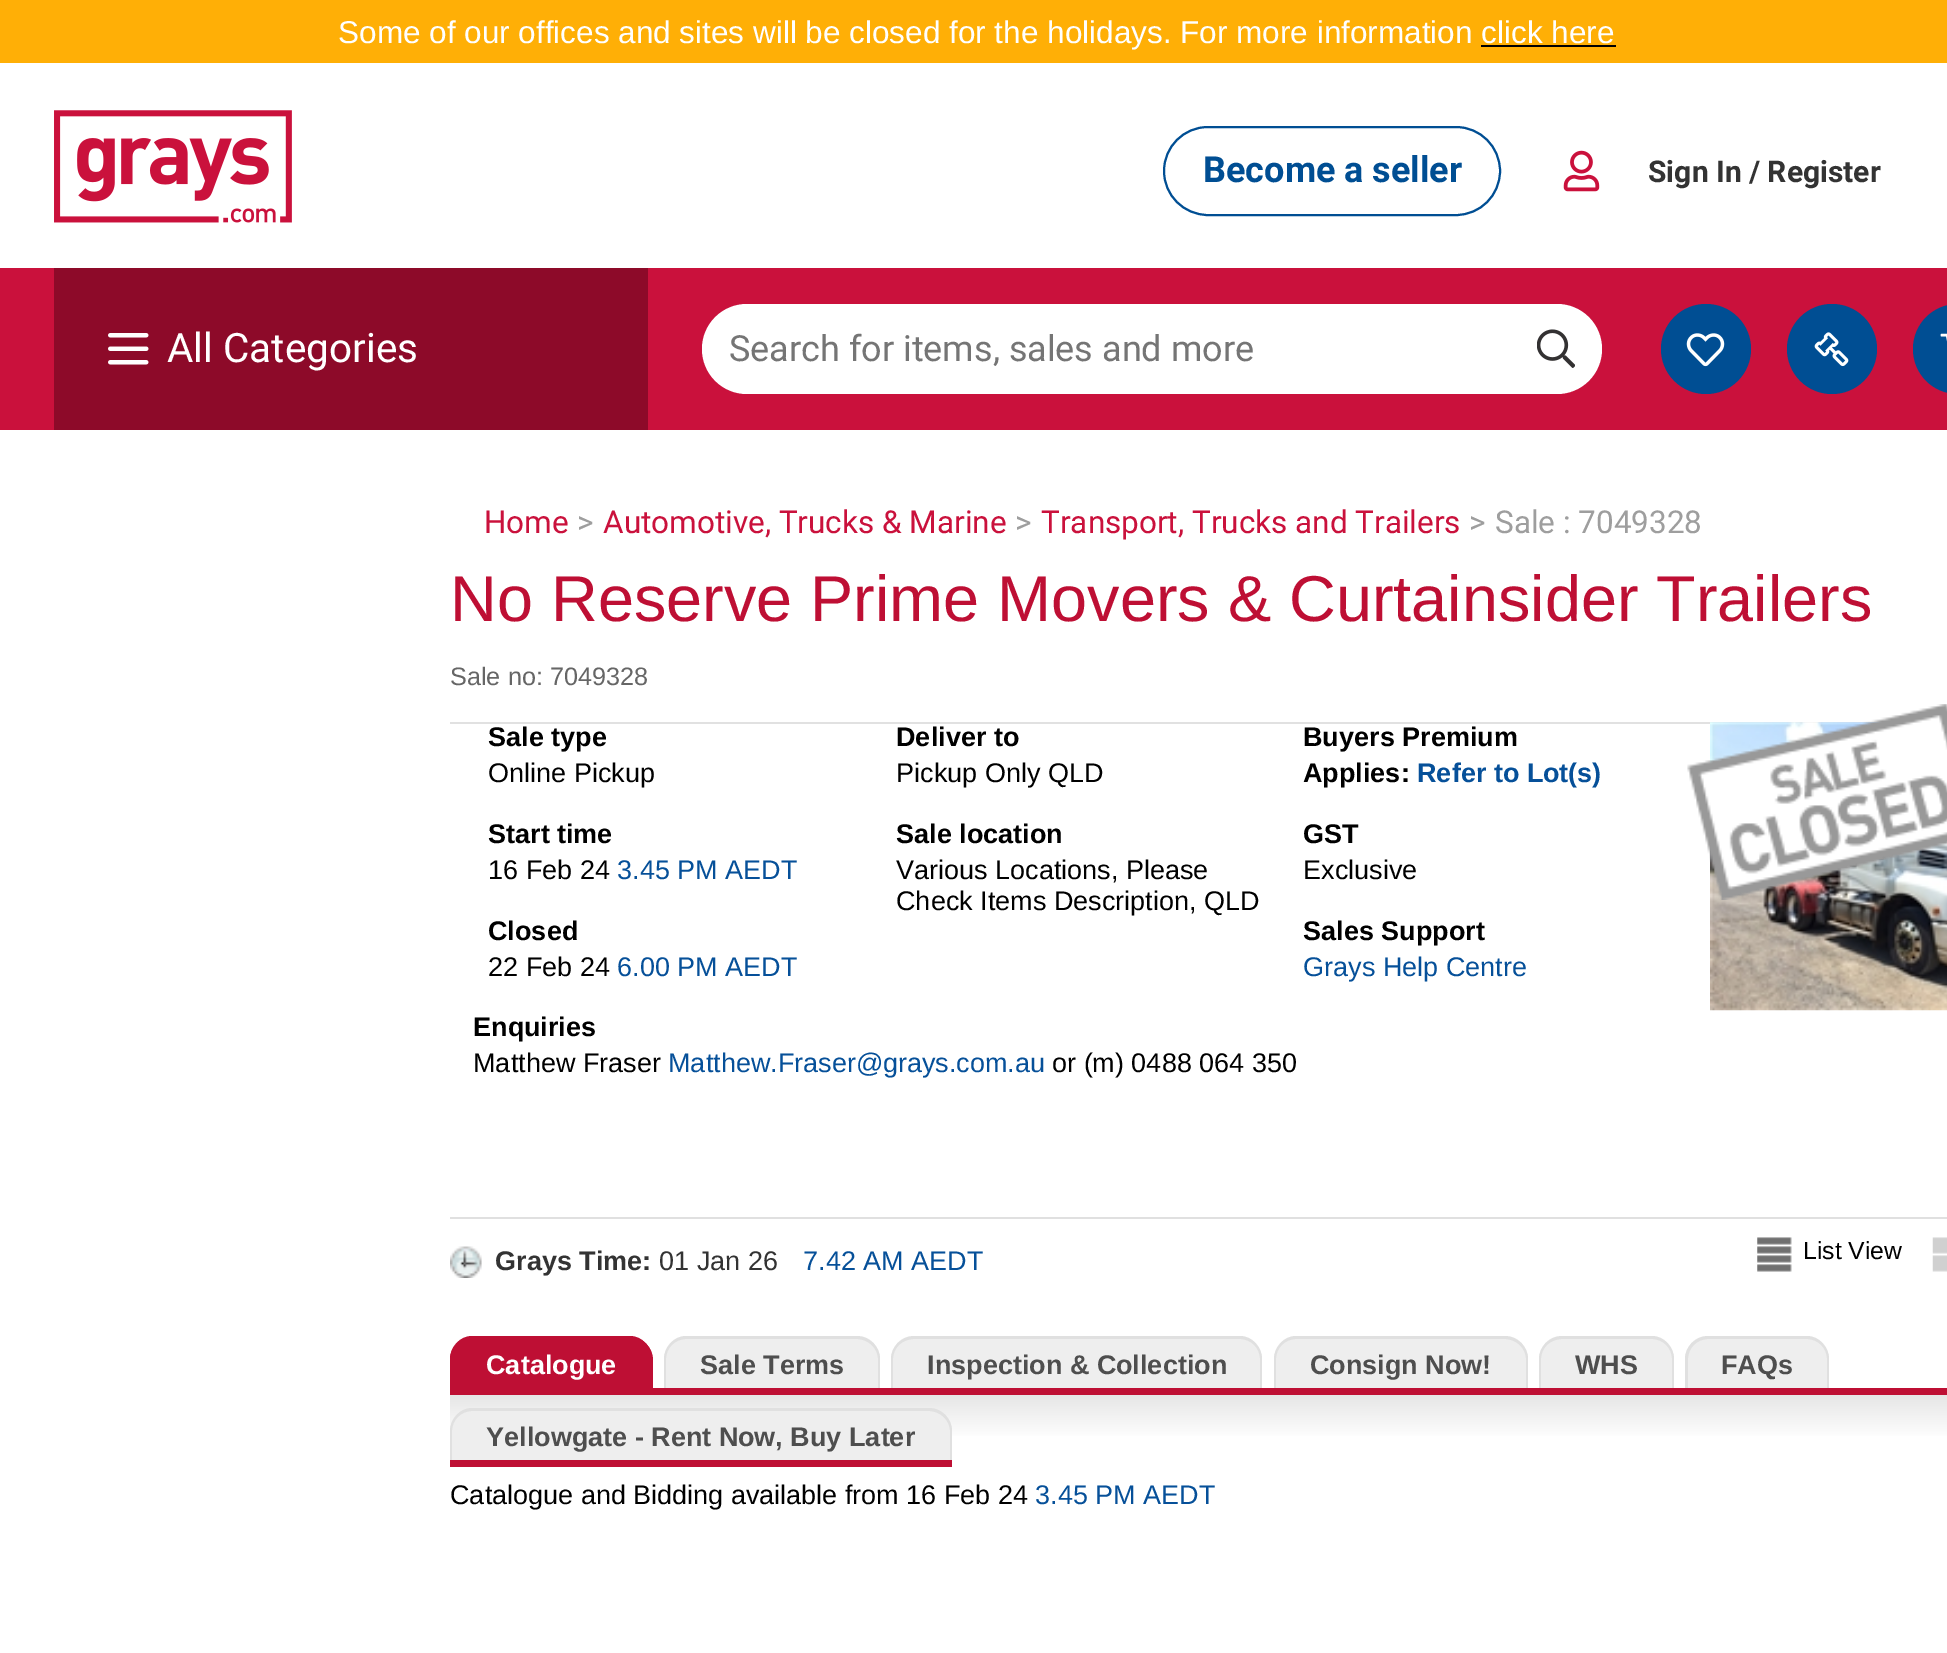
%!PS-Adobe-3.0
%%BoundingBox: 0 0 1947 1653
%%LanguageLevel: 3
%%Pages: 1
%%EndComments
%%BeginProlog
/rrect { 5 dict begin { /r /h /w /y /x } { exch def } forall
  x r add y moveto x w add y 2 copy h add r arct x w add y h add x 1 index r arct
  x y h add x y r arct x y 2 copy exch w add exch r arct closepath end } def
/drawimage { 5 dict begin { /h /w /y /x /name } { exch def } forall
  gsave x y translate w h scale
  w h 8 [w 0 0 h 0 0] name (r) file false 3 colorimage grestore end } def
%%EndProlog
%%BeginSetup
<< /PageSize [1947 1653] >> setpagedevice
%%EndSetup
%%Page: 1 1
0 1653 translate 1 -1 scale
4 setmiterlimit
1 setgray
0 0 1947 1653 rectfill
1 0.686 0.024 setrgbcolor
0 0 1947 63 rectfill
(images/1.raw) 54 110 238 113 drawimage
0 0.306 0.576 setrgbcolor
2 setlinewidth
1164 127 336 88 44 rrect stroke
(images/2.raw) 1563 150 37 42 drawimage
0.792 0.067 0.235 setrgbcolor
0 268 1947 162 rectfill
0.553 0.039 0.161 setrgbcolor
54 268 594 162 rectfill
(images/3.raw) 108 333 41 32 drawimage
1 setgray
702 304 900 90 45 rrect fill
(images/4.raw) 1537 329 38 39 drawimage
0 0.306 0.576 setrgbcolor
newpath 1706 349 45 0 360 arc closepath fill
(images/5.raw) 1686 333 39 34 drawimage
newpath 1832 349 45 0 360 arc closepath fill
(images/6.raw) 1814 332 35 35 drawimage
newpath 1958 304 moveto 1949 304 lineto 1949 394 lineto 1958 394 lineto 1933 394 1913 374 1913 349 curveto 1913 324 1933 304 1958 304 curveto closepath fill
(images/7.raw) 1940 333 7 9 drawimage
0.882 setgray
450 722 1432 2 rectfill
(images/9.raw) 1710 722 237 289 drawimage
(images/8.raw) 1687 704 260 196 drawimage
(images/10.raw) 450 1246 32 32 drawimage
0.878 setgray
450 1217 1497 2 rectfill
(images/11.raw) 1757 1237 35 35 drawimage
(images/12.raw) 1932 1237 15 35 drawimage
0.745 0.059 0.204 setrgbcolor
450 1388 1497 7 rectfill
newpath 473 1337 moveto 630 1337 lineto 642.5 1337 653 1347.5 653 1360 curveto 653 1388 lineto 450 1388 lineto 450 1360 lineto 450 1347.5 460.5 1337 473 1337 curveto closepath fill
newpath 472 1336 moveto 630 1336 lineto 642 1336 652 1347 652 1359 curveto 652 1388 lineto 450 1388 lineto 450 1359 lineto 450 1347 460 1336 472 1336 curveto closepath 472 1339 moveto 630 1339 lineto 641 1339 650 1348 650 1359 curveto 650 1388 lineto 452 1388 lineto 452 1359 lineto 452 1348 461 1339 472 1339 curveto closepath eofill
0.933 setgray
newpath 687 1337 moveto 857 1337 lineto 869.5 1337 880 1347.5 880 1360 curveto 880 1388 lineto 664 1388 lineto 664 1360 lineto 664 1347.5 674.5 1337 687 1337 curveto closepath fill
0.878 setgray
newpath 686 1336 moveto 857 1336 lineto 870 1336 880 1347 880 1359 curveto 880 1388 lineto 664 1388 lineto 664 1359 lineto 664 1347 674 1336 686 1336 curveto closepath 686 1339 moveto 857 1339 lineto 868 1339 878 1348 878 1359 curveto 878 1388 lineto 666 1388 lineto 666 1359 lineto 666 1348 675 1339 686 1339 curveto closepath eofill
0.933 setgray
newpath 914 1337 moveto 1239 1337 lineto 1251.5 1337 1262 1347.5 1262 1360 curveto 1262 1388 lineto 891 1388 lineto 891 1360 lineto 891 1347.5 901.5 1337 914 1337 curveto closepath fill
0.878 setgray
newpath 914 1336 moveto 1240 1336 lineto 1252 1336 1262 1347 1262 1359 curveto 1262 1388 lineto 891 1388 lineto 891 1359 lineto 891 1347 901 1336 914 1336 curveto closepath 914 1339 moveto 1240 1339 lineto 1251 1339 1260 1348 1260 1359 curveto 1260 1388 lineto 893 1388 lineto 893 1359 lineto 893 1348 902 1339 914 1339 curveto closepath eofill
0.933 setgray
newpath 1297 1337 moveto 1505 1337 lineto 1517.5 1337 1528 1347.5 1528 1360 curveto 1528 1388 lineto 1274 1388 lineto 1274 1360 lineto 1274 1347.5 1284.5 1337 1297 1337 curveto closepath fill
0.878 setgray
newpath 1296 1336 moveto 1505 1336 lineto 1518 1336 1528 1347 1528 1359 curveto 1528 1388 lineto 1274 1388 lineto 1274 1359 lineto 1274 1347 1284 1336 1296 1336 curveto closepath 1296 1339 moveto 1505 1339 lineto 1516 1339 1526 1348 1526 1359 curveto 1526 1388 lineto 1276 1388 lineto 1276 1359 lineto 1276 1348 1285 1339 1296 1339 curveto closepath eofill
0.933 setgray
newpath 1562 1337 moveto 1651 1337 lineto 1663.5 1337 1674 1347.5 1674 1360 curveto 1674 1388 lineto 1539 1388 lineto 1539 1360 lineto 1539 1347.5 1549.5 1337 1562 1337 curveto closepath fill
0.878 setgray
newpath 1562 1336 moveto 1652 1336 lineto 1664 1336 1674 1347 1674 1359 curveto 1674 1388 lineto 1539 1388 lineto 1539 1359 lineto 1539 1347 1549 1336 1562 1336 curveto closepath 1562 1339 moveto 1652 1339 lineto 1663 1339 1672 1348 1672 1359 curveto 1672 1388 lineto 1541 1388 lineto 1541 1359 lineto 1541 1348 1550 1339 1562 1339 curveto closepath eofill
0.933 setgray
newpath 1708 1337 moveto 1806 1337 lineto 1818.5 1337 1829 1347.5 1829 1360 curveto 1829 1388 lineto 1685 1388 lineto 1685 1360 lineto 1685 1347.5 1695.5 1337 1708 1337 curveto closepath fill
0.878 setgray
newpath 1708 1336 moveto 1807 1336 lineto 1819 1336 1829 1347 1829 1359 curveto 1829 1388 lineto 1685 1388 lineto 1685 1359 lineto 1685 1347 1695 1336 1708 1336 curveto closepath 1708 1339 moveto 1807 1339 lineto 1818 1339 1827 1348 1827 1359 curveto 1827 1388 lineto 1688 1388 lineto 1688 1359 lineto 1688 1348 1697 1339 1708 1339 curveto closepath eofill
0.745 0.059 0.204 setrgbcolor
450 1460 502 7 rectfill
gsave newpath 450 1395 moveto 1947 1395 lineto 1947 1436 lineto 450 1436 lineto closepath clip newpath
<< /ShadingType 2 /ColorSpace /DeviceRGB /Coords [1294 1395 1294 1440] /Extend [true true] /Function << /FunctionType 2 /Domain [0 1] /C0 [0.902 0.902 0.902] /C1 [1 1 1] /N 1 >> >> shfill grestore
0.933 setgray
newpath 473 1409 moveto 929 1409 lineto 941.5 1409 952 1419.5 952 1432 curveto 952 1460 lineto 450 1460 lineto 450 1432 lineto 450 1419.5 460.5 1409 473 1409 curveto closepath fill
0.878 setgray
newpath 472 1408 moveto 929 1408 lineto 942 1408 952 1419 952 1431 curveto 952 1460 lineto 450 1460 lineto 450 1431 lineto 450 1419 460 1408 472 1408 curveto closepath 472 1411 moveto 929 1411 lineto 940 1411 950 1420 950 1431 curveto 950 1460 lineto 452 1460 lineto 452 1431 lineto 452 1420 461 1411 472 1411 curveto closepath eofill
/LiberationSans-Regular [31.5 0 0 -31.5 0 0] selectfont
1 setgray
338 43 moveto (Some of our offices and sites will be closed for the holidays. For more information click here) show
0 setgray
1481 45 135 2 rectfill
/Roboto-Bold [36 0 0 -36 0 0] selectfont
0 0.306 0.576 setrgbcolor
1203 182 moveto (Become a seller) show
/Roboto-Bold [30 0 0 -30 0 0] selectfont
0.2 setgray
1648 182 moveto (Sign In / Register) show
/Roboto-Regular [40.5 0 0 -40.5 0 0] selectfont
1 setgray
167 362 moveto (All Categories) show
/Roboto-Regular [36 0 0 -36 0 0] selectfont
0.459 setgray
729 361 moveto (Search for items, sales and more) show
/Roboto-Regular [31.5 0 0 -31.5 0 0] selectfont
0.792 0.067 0.235 setrgbcolor
484 533 moveto (Home) show
0.62 setgray
577 533 moveto (>) show
0.792 0.067 0.235 setrgbcolor
603 533 moveto (Automotive, Trucks & Marine) show
0.62 setgray
1015 533 moveto (>) show
0.792 0.067 0.235 setrgbcolor
1041 533 moveto (Transport, Trucks and Trailers) show
0.62 setgray
1469 533 moveto (>) show
1495 533 moveto (Sale : 7049328) show
/LiberationSans-Regular [64.8 0 0 -64.8 0 0] selectfont
0.745 0.059 0.204 setrgbcolor
450 621 moveto (No Reserve Prime Movers & Curtainsider Trailers) show
/LiberationSans-Regular [25.25 0 0 -25.25 0 0] selectfont
0.4 setgray
450 685 moveto (Sale no: 7049328) show
/LiberationSans-Bold [27 0 0 -27 0 0] selectfont
0 setgray
488 746 moveto (Sale type) show
/LiberationSans-Regular [27 0 0 -27 0 0] selectfont
488 782 moveto (Online Pickup) show
/LiberationSans-Bold [27 0 0 -27 0 0] selectfont
488 843 moveto (Start time) show
/LiberationSans-Regular [27 0 0 -27 0 0] selectfont
488 879 moveto (16 Feb 24) show
0.024 0.314 0.6 setrgbcolor
617 879 moveto (3.45 PM AEDT) show
/LiberationSans-Bold [27 0 0 -27 0 0] selectfont
0 setgray
488 940 moveto (Closed) show
/LiberationSans-Regular [27 0 0 -27 0 0] selectfont
488 976 moveto (22 Feb 24) show
0.024 0.314 0.6 setrgbcolor
617 976 moveto (6.00 PM AEDT) show
/LiberationSans-Bold [27 0 0 -27 0 0] selectfont
0 setgray
896 746 moveto (Deliver to) show
/LiberationSans-Regular [27 0 0 -27 0 0] selectfont
896 782 moveto (Pickup Only QLD) show
/LiberationSans-Bold [27 0 0 -27 0 0] selectfont
896 843 moveto (Sale location) show
/LiberationSans-Regular [27 0 0 -27 0 0] selectfont
896 879 moveto (Various Locations, Please) show
896 910 moveto (Check Items Description, QLD) show
/LiberationSans-Bold [27 0 0 -27 0 0] selectfont
1303 746 moveto (Buyers Premium) show
1303 782 moveto (Applies:) show
0.024 0.314 0.6 setrgbcolor
1417 782 moveto (Refer to Lot\(s\)) show
0 setgray
1303 843 moveto (GST) show
/LiberationSans-Regular [27 0 0 -27 0 0] selectfont
1303 879 moveto (Exclusive) show
/LiberationSans-Bold [27 0 0 -27 0 0] selectfont
1303 940 moveto (Sales Support) show
/LiberationSans-Regular [27 0 0 -27 0 0] selectfont
0.024 0.314 0.6 setrgbcolor
1303 976 moveto (Grays Help Centre) show
/LiberationSans-Bold [27 0 0 -27 0 0] selectfont
0 setgray
473 1036 moveto (Enquiries) show
/LiberationSans-Regular [27 0 0 -27 0 0] selectfont
473 1072 moveto (Matthew Fraser) show
0.024 0.314 0.6 setrgbcolor
668 1072 moveto (Matthew.Fraser@grays.com.au) show
0 setgray
1052 1072 moveto (or \(m\) 0488 064 350) show
/LiberationSans-Bold [27 0 0 -27 0 0] selectfont
0.2 setgray
495 1270 moveto (Grays Time:) show
/LiberationSans-Regular [27 0 0 -27 0 0] selectfont
659 1270 moveto (01 Jan 26) show
0.024 0.314 0.6 setrgbcolor
803 1270 moveto (7.42 AM AEDT) show
/LiberationSans-Regular [24.75 0 0 -24.75 0 0] selectfont
0 setgray
1803 1259 moveto (List View) show
/LiberationSans-Bold [27 0 0 -27 0 0] selectfont
1 setgray
486 1374 moveto (Catalogue) show
0.306 setgray
700 1374 moveto (Sale Terms) show
927 1374 moveto (Inspection & Collection) show
1310 1374 moveto (Consign Now!) show
1575 1374 moveto (WHS) show
1721 1374 moveto (FAQs) show
486 1446 moveto (Yellowgate - Rent Now, Buy Later) show
/LiberationSans-Regular [27 0 0 -27 0 0] selectfont
0 setgray
450 1504 moveto (Catalogue and Bidding available from 16 Feb 24) show
0.024 0.314 0.6 setrgbcolor
1035 1504 moveto (3.45 PM AEDT) show
showpage
%%EOF
